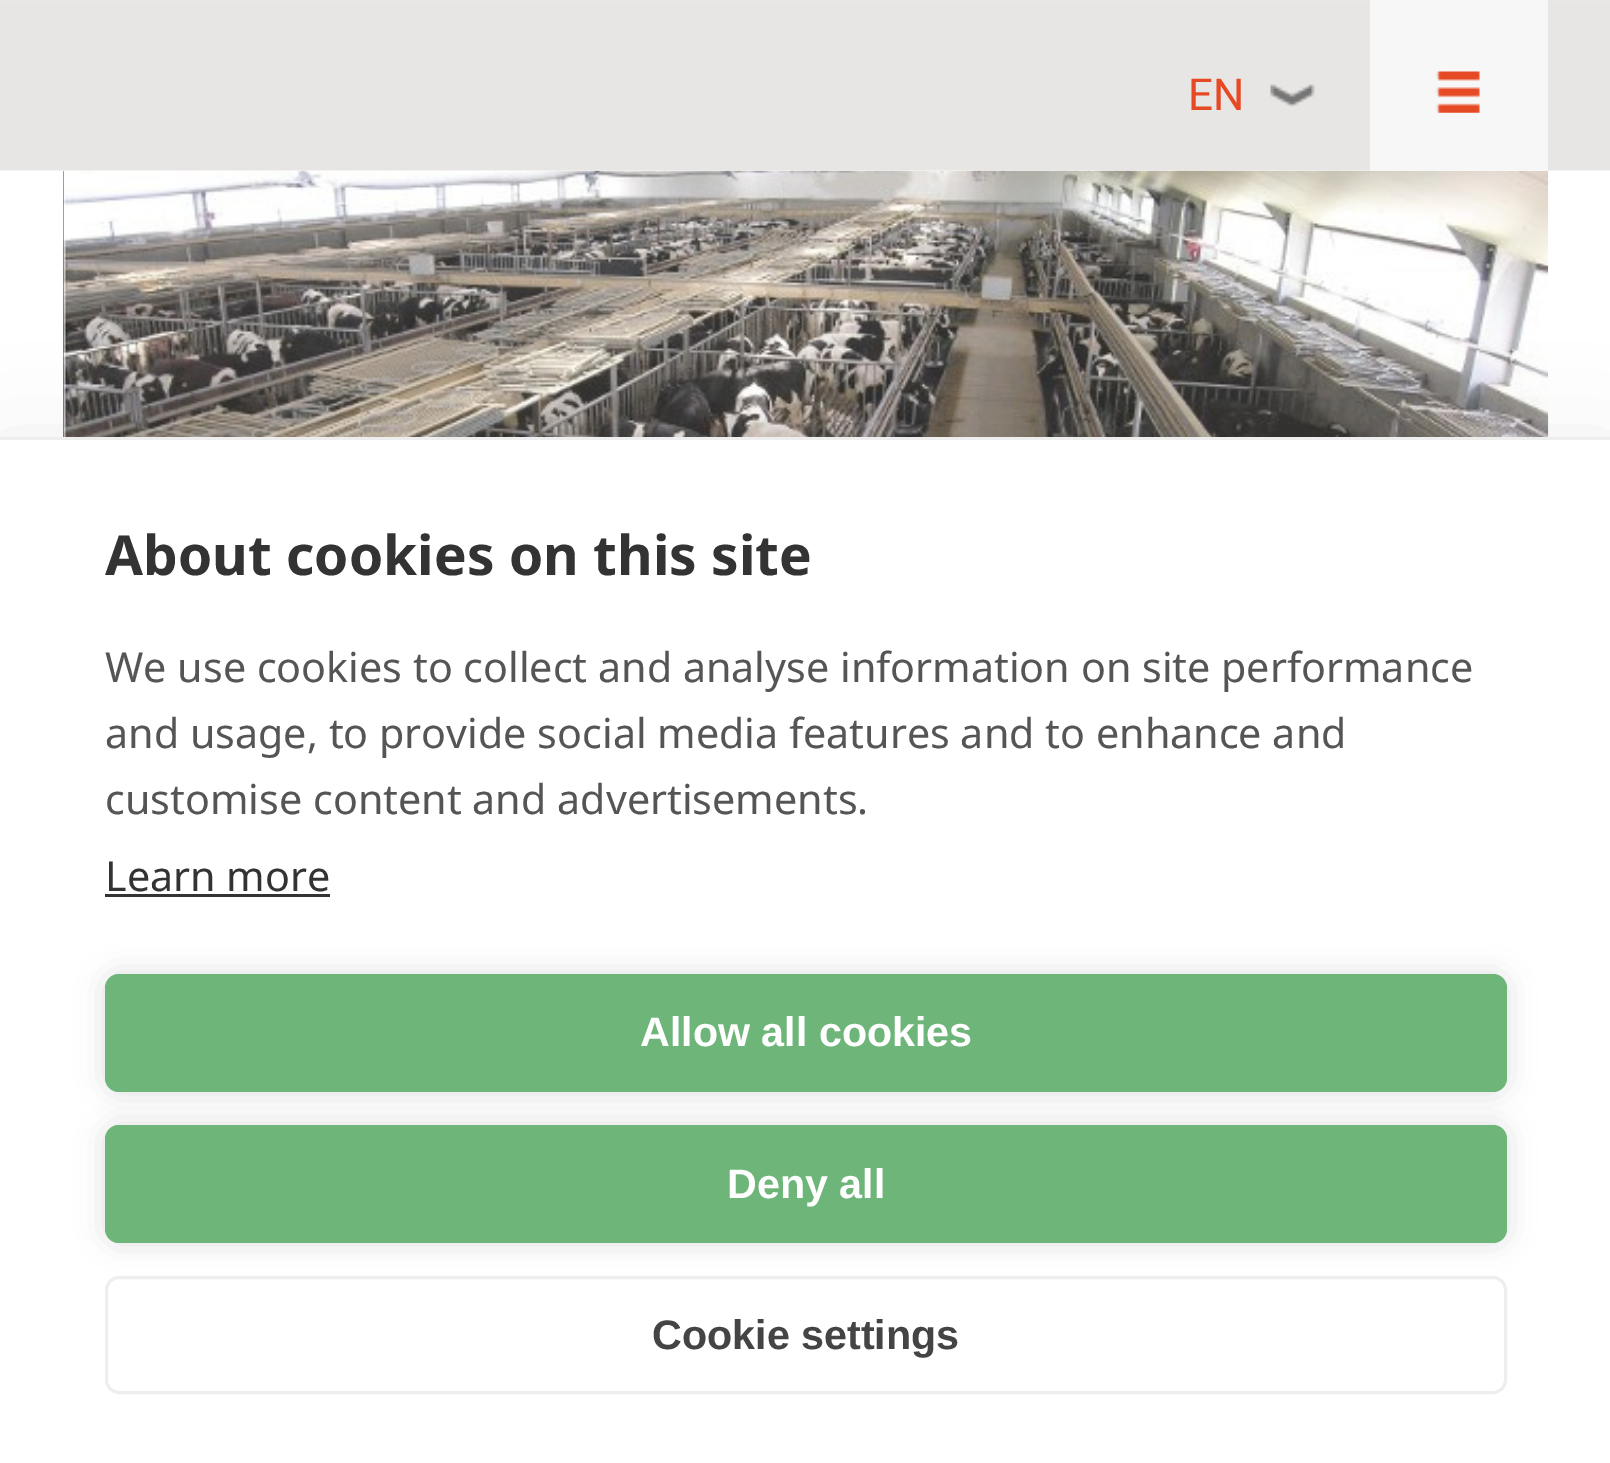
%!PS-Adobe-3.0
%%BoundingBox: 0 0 1610 1463
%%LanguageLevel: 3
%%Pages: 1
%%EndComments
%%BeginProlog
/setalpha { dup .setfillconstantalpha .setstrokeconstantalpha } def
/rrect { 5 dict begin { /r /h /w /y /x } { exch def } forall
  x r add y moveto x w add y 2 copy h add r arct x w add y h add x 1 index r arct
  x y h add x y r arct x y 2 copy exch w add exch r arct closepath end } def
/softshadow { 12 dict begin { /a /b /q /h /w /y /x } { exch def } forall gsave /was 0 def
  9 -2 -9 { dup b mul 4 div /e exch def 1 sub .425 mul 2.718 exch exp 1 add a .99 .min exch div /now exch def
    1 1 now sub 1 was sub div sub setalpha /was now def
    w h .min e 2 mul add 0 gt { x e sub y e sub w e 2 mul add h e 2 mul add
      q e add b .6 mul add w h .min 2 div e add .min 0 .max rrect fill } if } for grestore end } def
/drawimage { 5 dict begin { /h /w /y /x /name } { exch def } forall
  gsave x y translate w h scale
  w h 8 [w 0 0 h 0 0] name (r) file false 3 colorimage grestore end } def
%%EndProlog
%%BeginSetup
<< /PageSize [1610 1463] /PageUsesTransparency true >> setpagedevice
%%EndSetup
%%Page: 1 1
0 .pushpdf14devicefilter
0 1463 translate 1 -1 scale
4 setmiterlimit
1 setgray
0 0 1610 1463 rectfill
0.122 0.137 0.129 setrgbcolor
63 171 1 266 rectfill
(images/4.raw) 63 170 1486 267 drawimage
(images/1.raw) 0 0 1610 171 drawimage
(images/2.raw) 1270 84 45 23 drawimage
0.969 setgray
1370 0 178 171 rectfill
(images/3.raw) 1435 71 45 42 drawimage
0 setgray
0 465 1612 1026 0 55 0.1 softshadow
1 setgray
0 440 1610 1023 rectfill
0.933 setgray
0 437 1610 3 rectfill
0.2 setgray
105 894 225 3 rectfill
0 setgray
105 974 1402 118 14 14 0.12 softshadow
0.431 0.71 0.475 setrgbcolor
105 974 1402 118 14 rrect fill
0 setgray
105 1125 1402 118 14 14 0.12 softshadow
0.431 0.71 0.475 setrgbcolor
105 1125 1402 118 14 rrect fill
0.933 setgray
3 setlinewidth
106.5 1277.5 1399 115 12.5 rrect stroke
/Roboto-Regular [44 0 0 -44 0 0] selectfont
0.902 0.29 0.145 setrgbcolor
1188 110 moveto (EN) show
/NotoSans-Bold [55 0 0 -55 0 0] selectfont
0.2 setgray
105 575 moveto (About cookies on this site) show
/NotoSans-Regular [41.25 0 0 -41.25 0 0] selectfont
0.333 setgray
105 682 moveto (We use cookies to collect and analyse information on site performance) show
105 748 moveto (and usage, to provide social media features and to enhance and) show
105 814 moveto (customise content and advertisements.) show
0.2 setgray
105 891 moveto (Learn more) show
/LiberationSans-Bold [41.25 0 0 -41.25 0 0] selectfont
1 setgray
640 1046 moveto (Allow all cookies) show
727 1198 moveto (Deny all) show
0.267 setgray
652 1349 moveto (Cookie settings) show
.poppdf14devicefilter showpage
%%EOF
